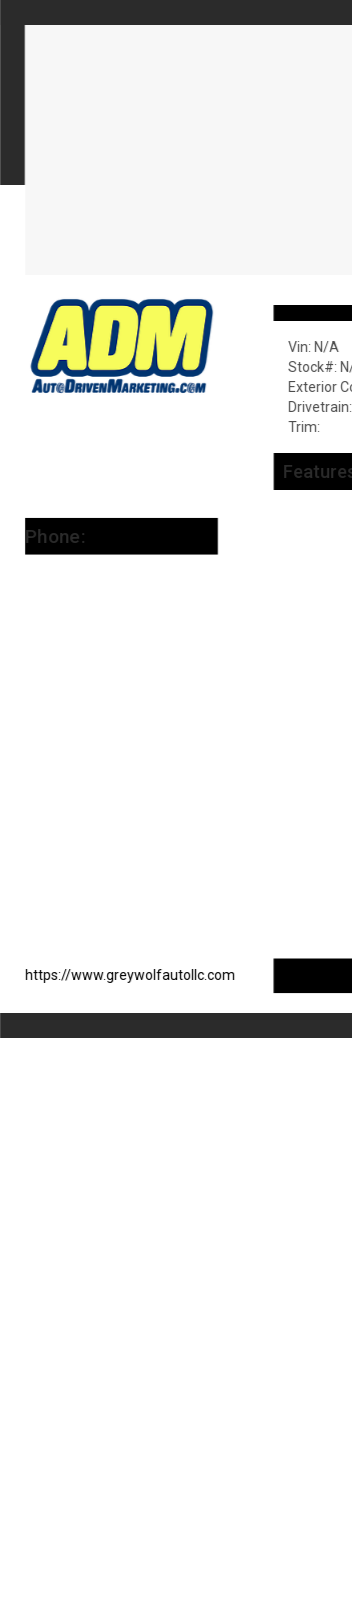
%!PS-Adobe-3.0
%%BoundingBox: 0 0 352 1601
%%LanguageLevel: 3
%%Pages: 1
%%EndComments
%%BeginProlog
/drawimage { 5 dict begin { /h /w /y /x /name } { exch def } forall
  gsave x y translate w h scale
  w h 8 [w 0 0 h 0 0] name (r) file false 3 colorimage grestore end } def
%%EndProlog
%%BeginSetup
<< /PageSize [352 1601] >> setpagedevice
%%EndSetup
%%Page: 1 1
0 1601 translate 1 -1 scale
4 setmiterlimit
1 setgray
0 0 352 1601 rectfill
(images/1.raw) 0 0 352 1038 drawimage
showpage
%%EOF
